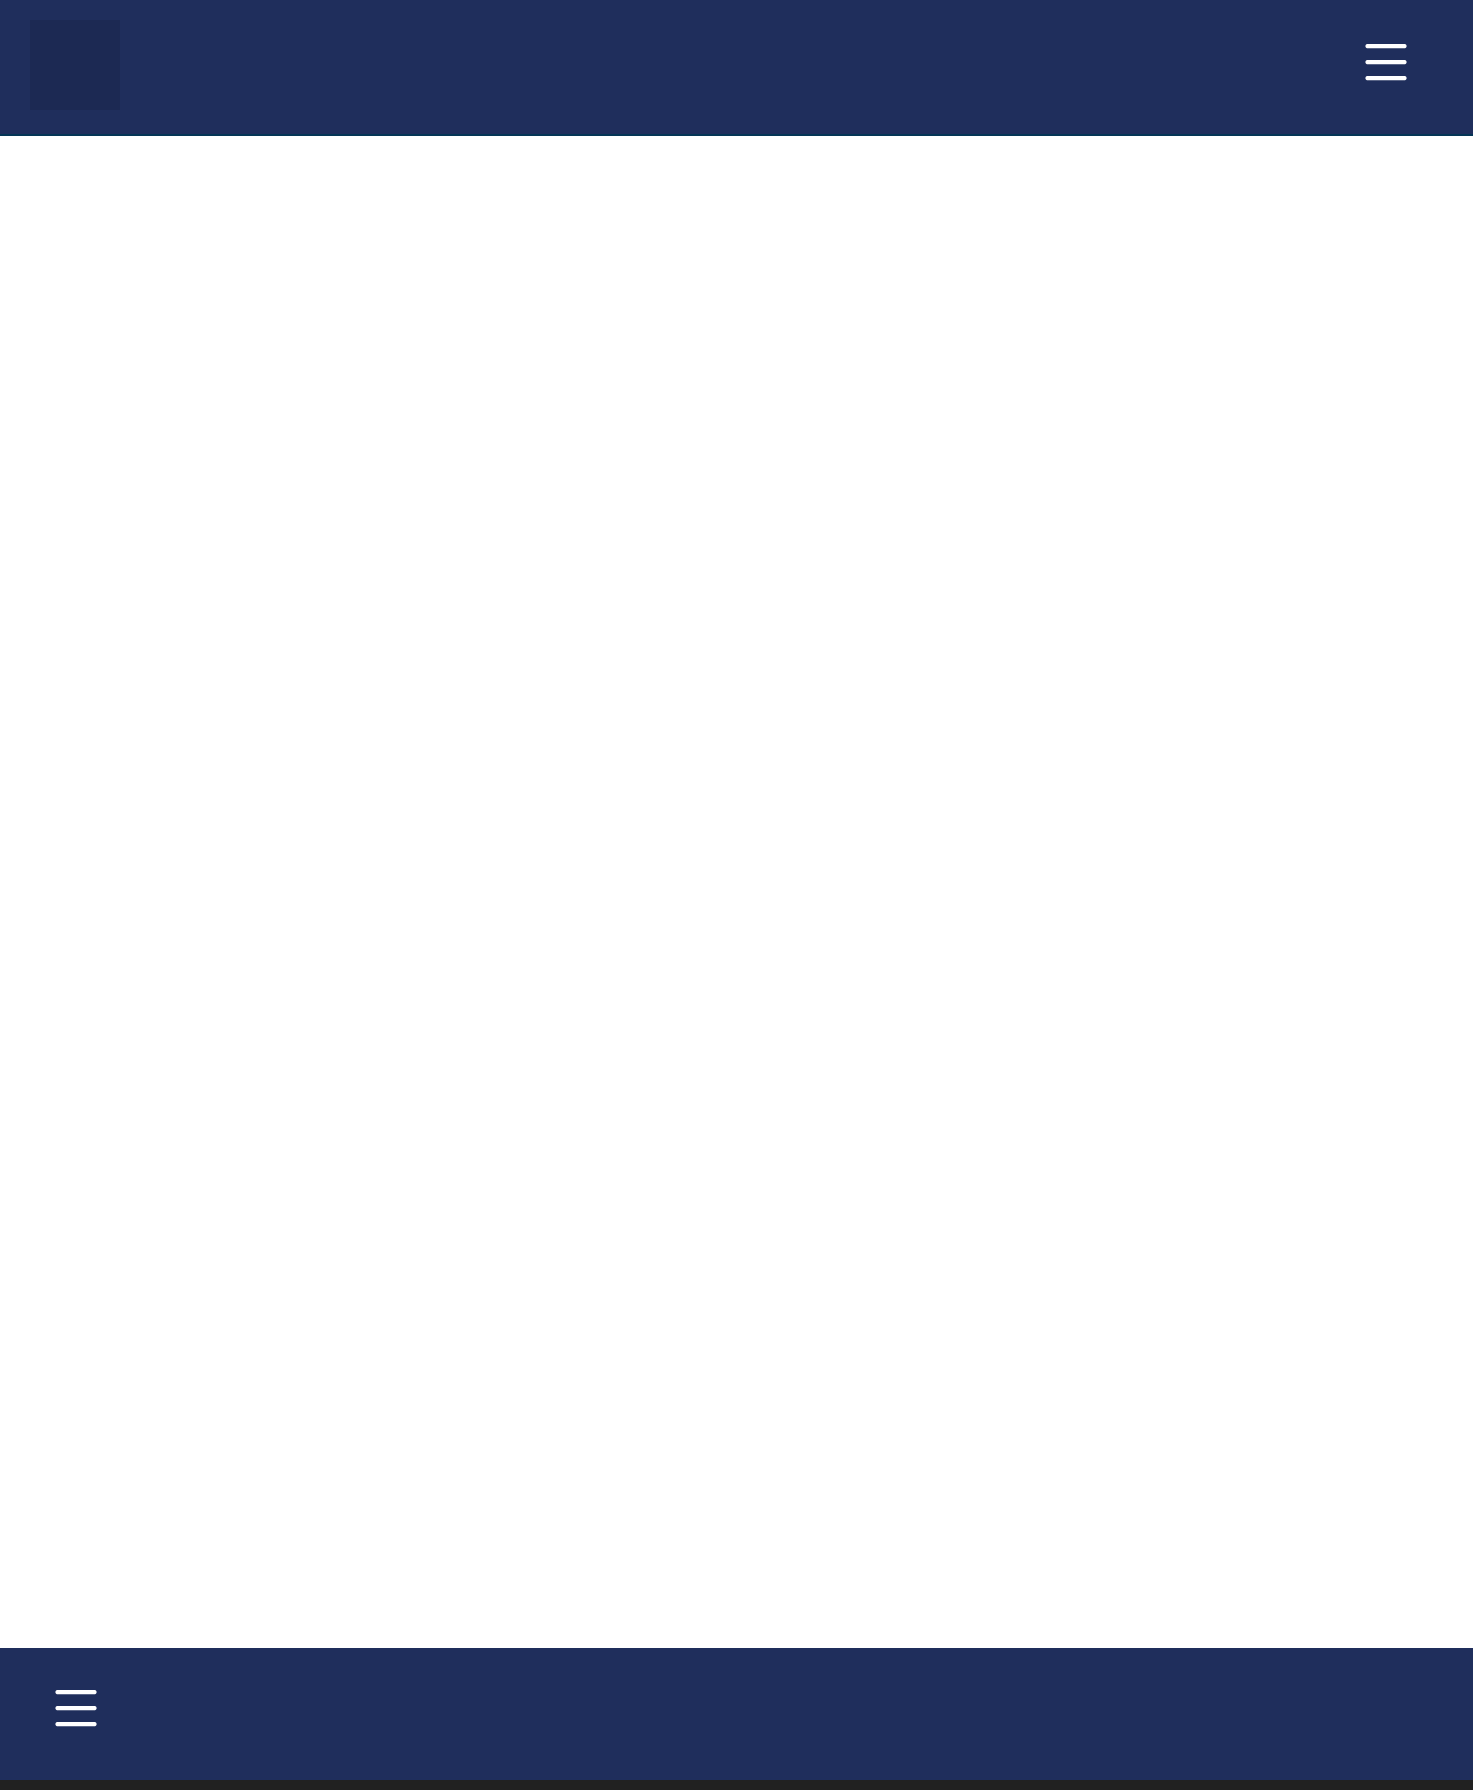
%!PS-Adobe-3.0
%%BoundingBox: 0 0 1473 1790
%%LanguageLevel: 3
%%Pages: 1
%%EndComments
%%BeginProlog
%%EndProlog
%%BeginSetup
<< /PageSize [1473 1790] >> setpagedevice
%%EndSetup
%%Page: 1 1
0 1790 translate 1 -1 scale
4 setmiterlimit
1 setgray
0 0 1473 1790 rectfill
0.122 0.18 0.361 setrgbcolor
0 0 1473 134 rectfill
0.016 0.208 0.337 setrgbcolor
0 134 1473 2 rectfill
0.11 0.161 0.325 setrgbcolor
30 20 90 90 rectfill
1 setgray
4 setlinewidth
1 setlinecap
newpath 1367.5 62 moveto 1404.5 62 lineto 1367.5 46 moveto 1404.5 46 lineto 1367.5 78 moveto 1404.5 78 lineto stroke
0.122 0.18 0.361 setrgbcolor
0 1648 1473 132 rectfill
1 setgray
newpath 57.5 1708 moveto 94.5 1708 lineto 57.5 1692 moveto 94.5 1692 lineto 57.5 1724 moveto 94.5 1724 lineto stroke
0.129 setgray
0 1780 1473 10 rectfill
showpage
%%EOF
